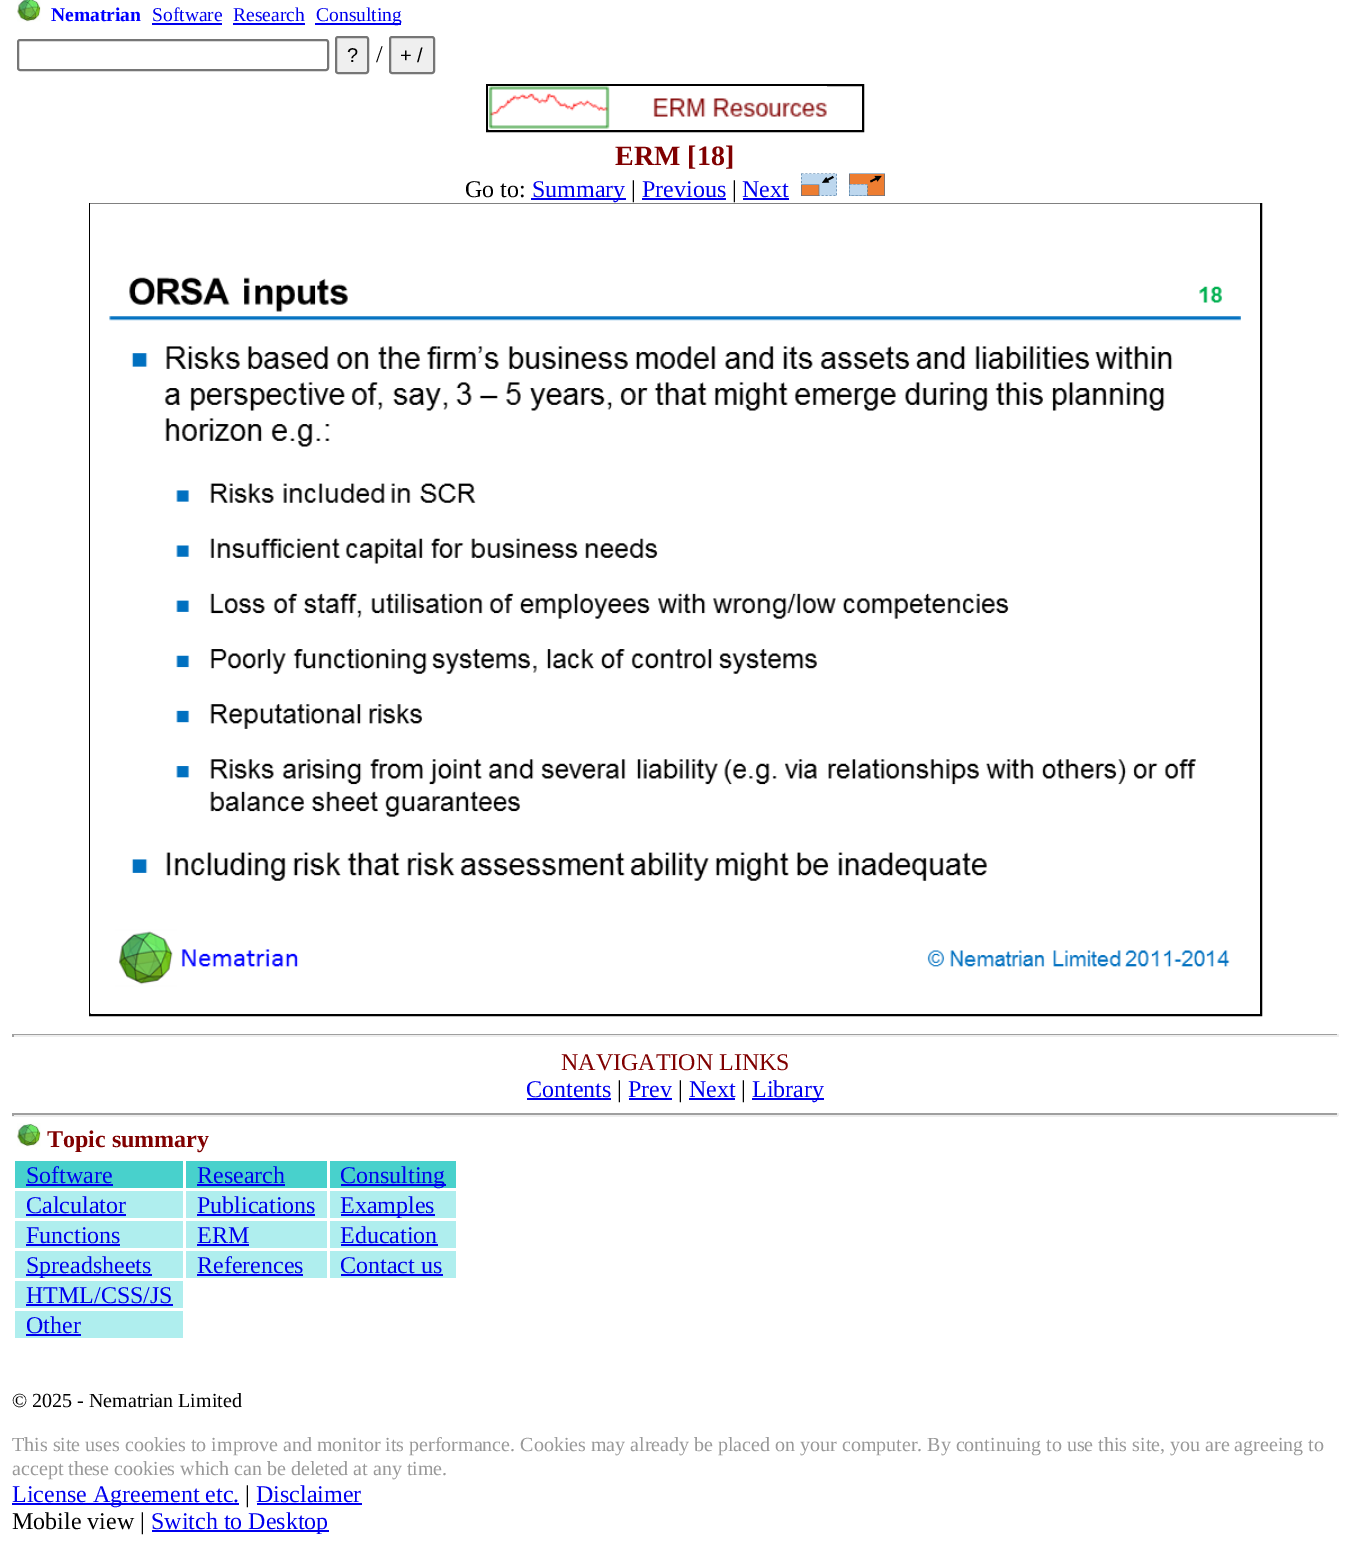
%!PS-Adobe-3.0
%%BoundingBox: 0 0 1350 1543
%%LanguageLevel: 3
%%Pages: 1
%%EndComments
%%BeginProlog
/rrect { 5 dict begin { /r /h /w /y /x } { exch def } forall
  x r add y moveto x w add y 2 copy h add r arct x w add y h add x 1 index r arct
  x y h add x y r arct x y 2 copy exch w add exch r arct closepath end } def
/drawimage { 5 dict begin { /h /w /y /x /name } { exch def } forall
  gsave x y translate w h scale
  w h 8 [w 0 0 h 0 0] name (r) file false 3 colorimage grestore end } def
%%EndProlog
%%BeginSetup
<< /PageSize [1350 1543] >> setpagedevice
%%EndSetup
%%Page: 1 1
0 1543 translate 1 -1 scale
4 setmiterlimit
1 setgray
0 0 1350 1543 rectfill
(images/1.raw) 17 0 24 22 drawimage
0 0 0.933 setrgbcolor
152 23 70 2 rectfill
233 23 72 2 rectfill
315 23 86 2 rectfill
0.463 setgray
2 setlinewidth
18 40 310 30 2 rrect stroke
0.937 setgray
336 37 32 36 2 rrect gsave fill grestore
0.463 setgray
stroke
0.937 setgray
390 37 44 36 2 rrect gsave fill grestore
0.463 setgray
stroke
0 setgray
487 85 376 46 rectstroke
(images/2.raw) 488 86 339 43 drawimage
0 0 0.933 setrgbcolor
531 198 95 2 rectfill
642 198 84 2 rectfill
743 198 46 2 rectfill
(images/3.raw) 801 173 36 23 drawimage
(images/4.raw) 849 173 36 23 drawimage
0 setgray
90 204 1171 811 rectstroke
(images/5.raw) 90 203 1170 811 drawimage
0.624 setgray
12 1034 1326 1 rectfill
0.933 setgray
1337 1034 2 3 rectfill
12 1035 1326 2 rectfill
0.624 setgray
12 1034 2 3 rectfill
0 0 0.933 setrgbcolor
527 1098 84 2 rectfill
629 1098 43 2 rectfill
689 1098 46 2 rectfill
752 1098 72 2 rectfill
0.624 setgray
12 1113 1326 2 rectfill
0.933 setgray
1337 1113 2 3 rectfill
12 1115 1326 2 rectfill
0.624 setgray
12 1113 2 3 rectfill
(images/6.raw) 17 1123 24 24 drawimage
0.282 0.82 0.8 setrgbcolor
15 1161 168 27 rectfill
0 0 0.933 setrgbcolor
26 1184 87 2 rectfill
0.282 0.82 0.8 setrgbcolor
186 1161 141 27 rectfill
0 0 0.933 setrgbcolor
197 1184 88 2 rectfill
0.282 0.82 0.8 setrgbcolor
330 1161 126 27 rectfill
0 0 0.933 setrgbcolor
341 1184 105 2 rectfill
0.686 0.933 0.933 setrgbcolor
15 1191 168 27 rectfill
0 0 0.933 setrgbcolor
26 1214 100 2 rectfill
0.686 0.933 0.933 setrgbcolor
186 1191 141 27 rectfill
0 0 0.933 setrgbcolor
197 1214 118 2 rectfill
0.686 0.933 0.933 setrgbcolor
330 1191 126 27 rectfill
0 0 0.933 setrgbcolor
341 1214 94 2 rectfill
0.686 0.933 0.933 setrgbcolor
15 1221 168 27 rectfill
0 0 0.933 setrgbcolor
26 1244 94 2 rectfill
0.686 0.933 0.933 setrgbcolor
186 1221 141 27 rectfill
0 0 0.933 setrgbcolor
197 1244 52 2 rectfill
0.686 0.933 0.933 setrgbcolor
330 1221 126 27 rectfill
0 0 0.933 setrgbcolor
341 1244 97 2 rectfill
0.686 0.933 0.933 setrgbcolor
15 1251 168 27 rectfill
0 0 0.933 setrgbcolor
26 1274 126 2 rectfill
0.686 0.933 0.933 setrgbcolor
186 1251 141 27 rectfill
0 0 0.933 setrgbcolor
197 1274 106 2 rectfill
0.686 0.933 0.933 setrgbcolor
330 1251 126 27 rectfill
0 0 0.933 setrgbcolor
341 1274 102 2 rectfill
0.686 0.933 0.933 setrgbcolor
15 1281 168 27 rectfill
0 0 0.933 setrgbcolor
26 1304 147 2 rectfill
0.686 0.933 0.933 setrgbcolor
15 1311 168 27 rectfill
0 0 0.933 setrgbcolor
26 1334 55 2 rectfill
12 1503 227 2 rectfill
257 1503 105 2 rectfill
152 1530 177 2 rectfill
/LiberationSerif-Bold [19.5 0 0 -19.5 0 0] selectfont
0 0 1 setrgbcolor
51 21 moveto (Nematrian) show
/LiberationSerif-Regular [19.5 0 0 -19.5 0 0] selectfont
0 0 0.933 setrgbcolor
152 21 moveto (Software) show
233 21 moveto (Research) show
316 21 moveto (Consulting) show
/LiberationSans-Regular [20 0 0 -20 0 0] selectfont
0 setgray
347 62 moveto (?) show
/LiberationSerif-Regular [24 0 0 -24 0 0] selectfont
376 62 moveto (/) show
/LiberationSans-Regular [20 0 0 -20 0 0] selectfont
400 62 moveto (+ /) show
/LiberationSerif-Bold [28 0 0 -28 0 0] selectfont
0.502 0 0 setrgbcolor
615 165 moveto (ERM [18]) show
/LiberationSerif-Regular [24 0 0 -24 0 0] selectfont
0 setgray
465 197 moveto (Go to:) show
0 0 0.933 setrgbcolor
532 197 moveto (Summary) show
0 setgray
631 197 moveto (|) show
0 0 0.933 setrgbcolor
642 197 moveto (Previous) show
0 setgray
732 197 moveto (|) show
0 0 0.933 setrgbcolor
742 197 moveto (Next) show
0.502 0 0 setrgbcolor
561 1070 moveto (NAVIGATION LINKS) show
0 0 0.933 setrgbcolor
526 1097 moveto (Contents) show
0 setgray
617 1097 moveto (|) show
0 0 0.933 setrgbcolor
628 1097 moveto (Prev) show
0 setgray
678 1097 moveto (|) show
0 0 0.933 setrgbcolor
689 1097 moveto (Next) show
0 setgray
741 1097 moveto (|) show
0 0 0.933 setrgbcolor
752 1097 moveto (Library) show
/LiberationSerif-Bold [24 0 0 -24 0 0] selectfont
0.502 0 0 setrgbcolor
47 1147 moveto (Topic summary) show
/LiberationSerif-Regular [24 0 0 -24 0 0] selectfont
0 0 0.933 setrgbcolor
26 1183 moveto (Software) show
197 1183 moveto (Research) show
340 1183 moveto (Consulting) show
26 1213 moveto (Calculator) show
197 1213 moveto (Publications) show
340 1213 moveto (Examples) show
26 1243 moveto (Functions) show
197 1243 moveto (ERM) show
340 1243 moveto (Education) show
26 1273 moveto (Spreadsheets) show
197 1273 moveto (References) show
340 1273 moveto (Contact us) show
26 1303 moveto (HTML/CSS/JS) show
26 1333 moveto (Other) show
/LiberationSerif-Regular [20 0 0 -20 0 0] selectfont
0 setgray
12 1407 moveto (© 2025 - Nematrian Limited) show
0.6 setgray
12 1451 moveto (This site uses cookies to improve and monitor its performance. Cookies may already be placed on your computer. By continuing to use this site, you are agreeing to) show
12 1475 moveto (accept these cookies which can be deleted at any time.) show
/LiberationSerif-Regular [24 0 0 -24 0 0] selectfont
0 0 0.933 setrgbcolor
12 1502 moveto (License Agreement etc.) show
0 setgray
245 1502 moveto (|) show
0 0 0.933 setrgbcolor
256 1502 moveto (Disclaimer) show
0 setgray
12 1529 moveto (Mobile view |) show
0 0 0.933 setrgbcolor
151 1529 moveto (Switch to Desktop) show
showpage
%%EOF
